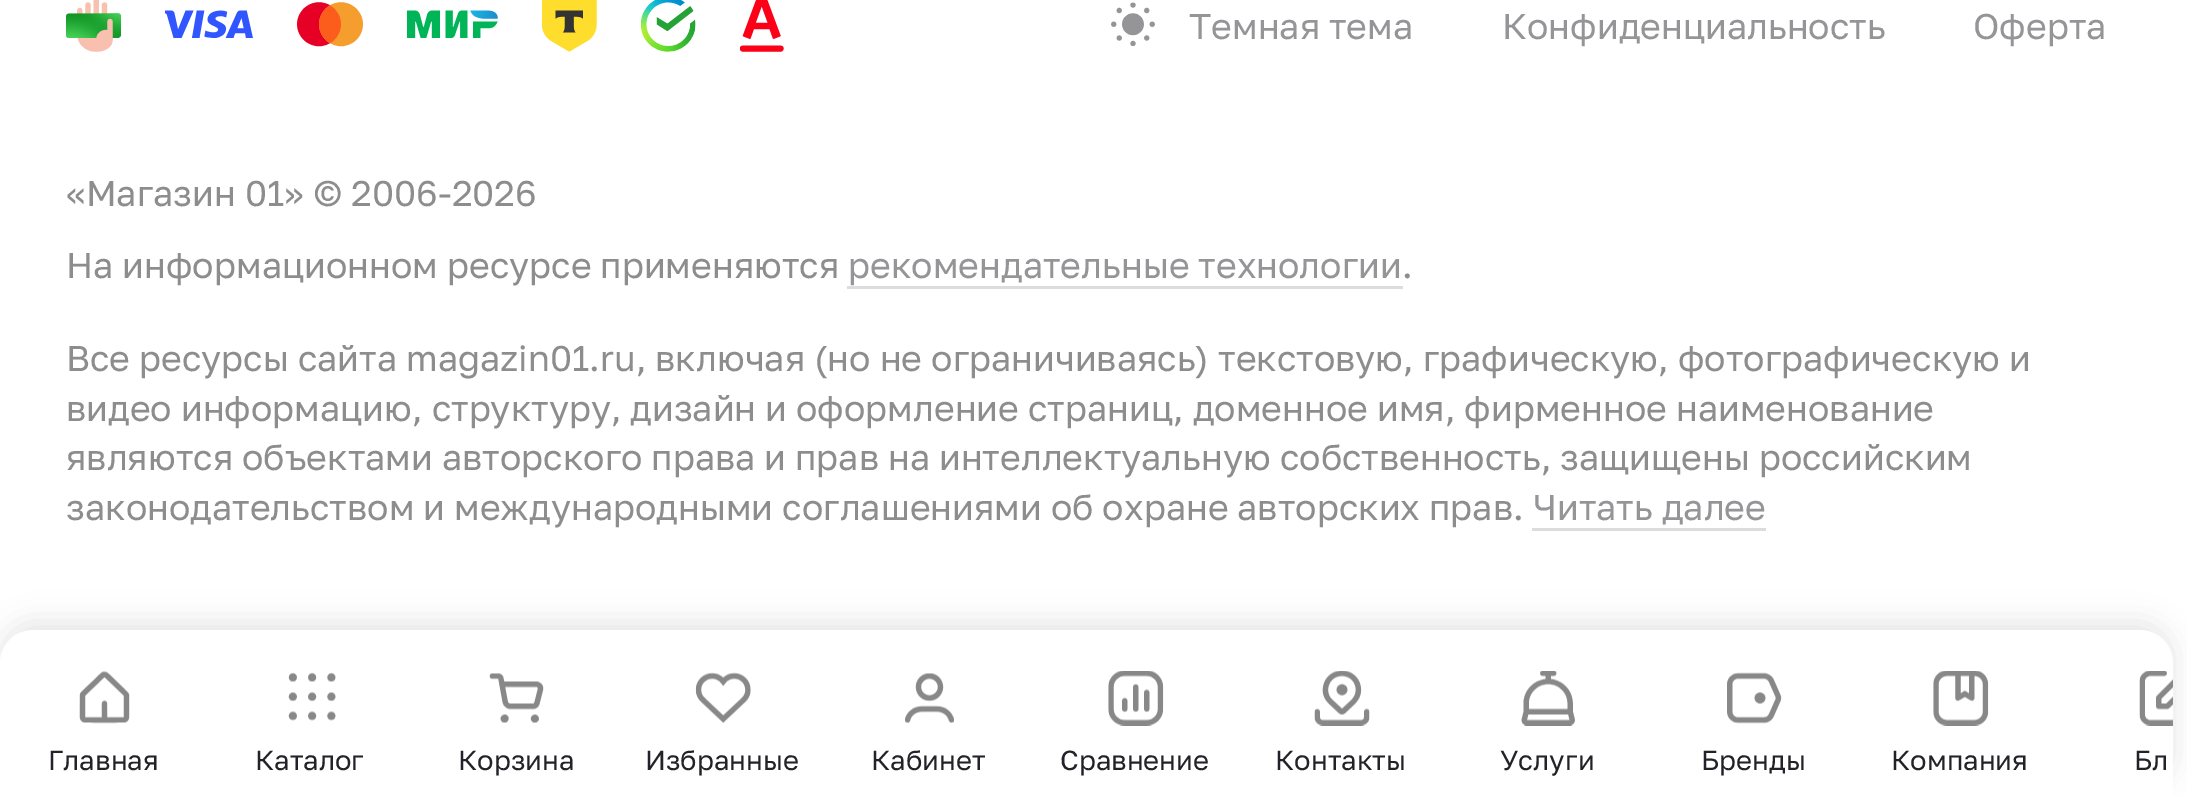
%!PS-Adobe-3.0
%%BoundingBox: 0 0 2187 796
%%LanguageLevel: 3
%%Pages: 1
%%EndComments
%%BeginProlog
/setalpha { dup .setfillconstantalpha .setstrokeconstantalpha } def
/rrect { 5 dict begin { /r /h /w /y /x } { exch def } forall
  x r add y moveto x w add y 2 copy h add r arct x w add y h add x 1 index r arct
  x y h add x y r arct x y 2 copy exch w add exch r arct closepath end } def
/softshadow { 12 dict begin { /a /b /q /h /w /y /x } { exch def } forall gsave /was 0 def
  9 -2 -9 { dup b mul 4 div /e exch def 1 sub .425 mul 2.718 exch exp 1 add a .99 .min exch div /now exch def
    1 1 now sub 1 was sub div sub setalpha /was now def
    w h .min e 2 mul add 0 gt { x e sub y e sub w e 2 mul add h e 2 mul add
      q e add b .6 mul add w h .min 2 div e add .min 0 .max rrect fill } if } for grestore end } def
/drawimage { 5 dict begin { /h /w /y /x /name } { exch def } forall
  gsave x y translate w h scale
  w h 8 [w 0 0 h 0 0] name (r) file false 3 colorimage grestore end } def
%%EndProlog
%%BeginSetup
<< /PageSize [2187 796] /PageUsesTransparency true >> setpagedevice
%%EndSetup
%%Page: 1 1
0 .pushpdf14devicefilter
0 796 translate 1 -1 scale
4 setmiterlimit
1 setgray
0 0 2187 796 rectfill
(images/1.raw) 66 0 55 52 drawimage
(images/2.raw) 165 10 88 28 drawimage
(images/3.raw) 297 2 66 45 drawimage
(images/4.raw) 407 10 91 28 drawimage
(images/5.raw) 542 0 55 52 drawimage
(images/6.raw) 641 0 55 52 drawimage
(images/7.raw) 740 0 44 52 drawimage
(images/8.raw) 1111 2 44 44 drawimage
0.863 0.863 0.867 setrgbcolor
847 286 556 3 rectfill
1532 528 234 3 rectfill
0 setgray
0 622 2173 167 33 14 0.1 softshadow
1 setgray
newpath 33 630 moveto 2140 630 lineto 2158 630 2173 645 2173 663 curveto 2173 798 lineto 0 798 lineto 0 663 lineto 0 645 15 630 33 630 curveto closepath fill
(images/9.raw) 79 671 51 53 drawimage
(images/10.raw) 288 672 48 49 drawimage
(images/11.raw) 489 673 55 50 drawimage
(images/12.raw) 695 672 56 52 drawimage
(images/13.raw) 905 673 49 50 drawimage
(images/14.raw) 1108 671 56 55 drawimage
(images/15.raw) 1314 671 56 55 drawimage
(images/16.raw) 1521 671 54 55 drawimage
(images/17.raw) 1727 672 55 52 drawimage
(images/18.raw) 1933 671 56 55 drawimage
(images/19.raw) 2139 671 34 55 drawimage
/GolosText-Regular [35.75 0 0 -35.75 0 0] selectfont
0.584 0.584 0.596 setrgbcolor
1189 39 moveto (Темная тема) show
1502 39 moveto (Конфиденциальность) show
1973 39 moveto (Оферта) show
0.553 setgray
66 206 moveto («Магазин 01» © 2006-2026) show
66 278 moveto (На информационном ресурсе применяются) show
0.584 0.584 0.596 setrgbcolor
848 278 moveto (рекомендательные технологии) show
0.553 setgray
1402 278 moveto (.) show
66 371 moveto (Все ресурсы сайта magazin01.ru, включая \(но не ограничиваясь\) текстовую, графическую, фотографическую и) show
66 421 moveto (видео информацию, структуру, дизайн и оформление страниц, доменное имя, фирменное наименование) show
66 470 moveto (являются объектами авторского права и прав на интеллектуальную собственность, защищены российским) show
66 520 moveto (законодательством и международными соглашениями об охране авторских прав.) show
0.584 0.584 0.596 setrgbcolor
1533 520 moveto (Читать далее) show
/GolosText-Regular [27.5 0 0 -27.5 0 0] selectfont
0.133 0.133 0.157 setrgbcolor
48 770 moveto (Главная) show
255 770 moveto (Каталог) show
458 770 moveto (Корзина) show
645 770 moveto (Избранные) show
871 770 moveto (Кабинет) show
1060 770 moveto (Сравнение) show
1275 770 moveto (Контакты) show
1500 770 moveto (Услуги) show
1701 770 moveto (Бренды) show
1891 770 moveto (Компания) show
2134 770 moveto (Бл) show
.poppdf14devicefilter showpage
%%EOF
